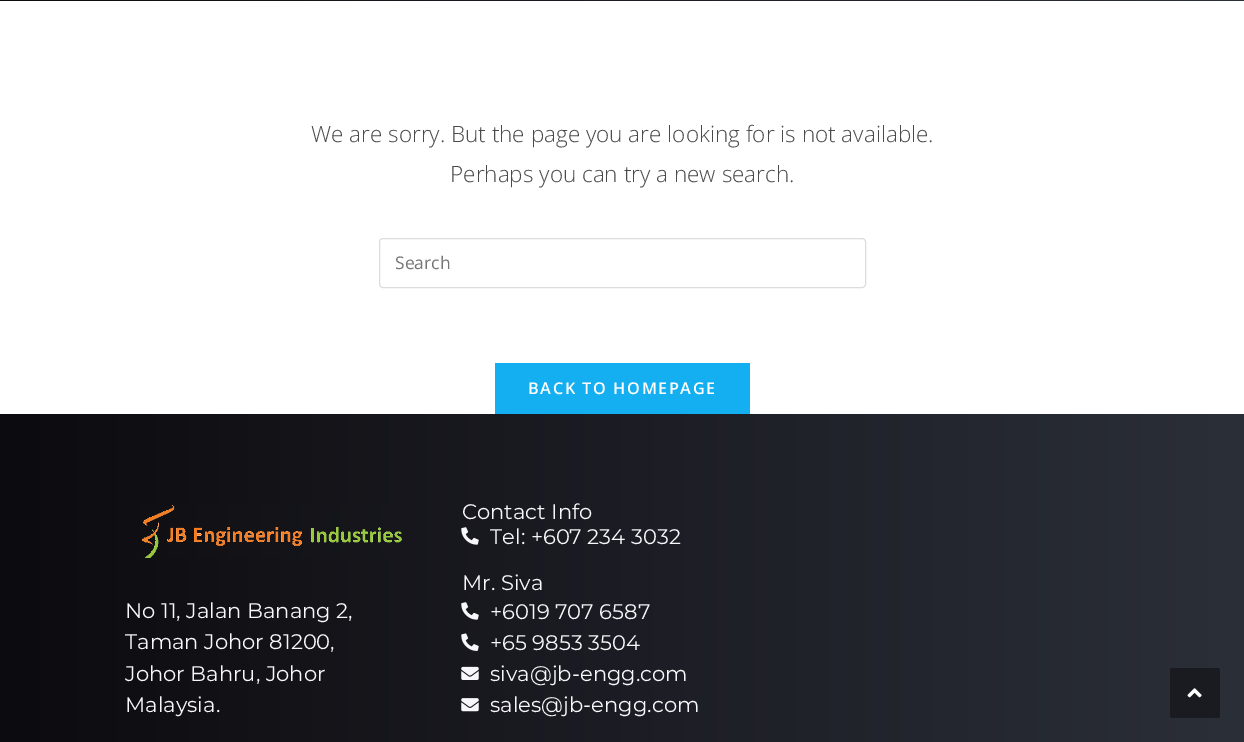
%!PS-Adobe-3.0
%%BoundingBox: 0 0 1244 742
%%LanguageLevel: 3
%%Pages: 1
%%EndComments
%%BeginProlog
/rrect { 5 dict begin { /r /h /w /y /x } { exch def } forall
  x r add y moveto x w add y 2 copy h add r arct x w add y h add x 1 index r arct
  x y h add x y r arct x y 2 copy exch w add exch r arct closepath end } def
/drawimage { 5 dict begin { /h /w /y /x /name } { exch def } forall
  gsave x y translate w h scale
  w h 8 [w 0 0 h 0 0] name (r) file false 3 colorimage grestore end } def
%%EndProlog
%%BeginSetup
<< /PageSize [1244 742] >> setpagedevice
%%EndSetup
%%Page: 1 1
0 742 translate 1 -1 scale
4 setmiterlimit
1 setgray
0 0 1244 742 rectfill
gsave newpath 0 0 moveto 1244 0 lineto 1244 1 lineto 0 1 lineto closepath clip newpath
<< /ShadingType 2 /ColorSpace /DeviceRGB /Coords [0 -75 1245 -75] /Extend [true true] /Function << /FunctionType 2 /Domain [0 1] /C0 [0.047 0.043 0.059] /C1 [0.169 0.184 0.22] /N 1 >> >> shfill grestore
0.867 setgray
379.5 238.5 486 49 3.5 rrect stroke
0.075 0.686 0.941 setrgbcolor
495 363 255 51 rectfill
gsave newpath 0 414 moveto 1244 414 lineto 1244 742 lineto 0 742 lineto closepath clip newpath
<< /ShadingType 2 /ColorSpace /DeviceRGB /Coords [0 652 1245 652] /Extend [true true] /Function << /FunctionType 2 /Domain [0 1] /C0 [0.047 0.043 0.059] /C1 [0.169 0.184 0.22] /N 1 >> >> shfill grestore
(images/1.raw) 142 505 260 53 drawimage
(images/2.raw) 461 527 18 18 drawimage
(images/2.raw) 461 602 18 18 drawimage
(images/3.raw) 461 633 18 18 drawimage
(images/4.raw) 461 666 18 14 drawimage
(images/5.raw) 461 698 18 14 drawimage
0.098 0.106 0.129 setrgbcolor
1170 668 50 50 2.5 rrect fill
(images/6.raw) 1187 688 15 10 drawimage
/OpenSans-Light [22.5 0 0 -22.5 0 0] selectfont
0.29 setgray
311 142 moveto (We are sorry. But the page you are looking for is not available.) show
450 182 moveto (Perhaps you can try a new search.) show
/OpenSans-Regular [17.5 0 0 -17.5 0 0] selectfont
0.459 setgray
395 269 moveto (Search) show
/OpenSans-SemiBold [16.25 0 0 -16.25 0 0] selectfont
1 setgray
528 394 moveto 1.6 0 (BACK TO HOMEPAGE) ashow
/Montserrat-Regular [21.1 0 0 -21.1 0 0] selectfont
0.973 0.969 0.984 setrgbcolor
125 618 moveto (No 11, Jalan Banang 2,) show
125 649 moveto (Taman Johor 81200,) show
125 681 moveto (Johor Bahru, Johor) show
125 712 moveto (Malaysia.) show
462 519 moveto (Contact Info) show
490 544 moveto (Tel: +607 234 3032) show
462 590 moveto (Mr. Siva) show
490 619 moveto (+6019 707 6587) show
490 650 moveto (+65 9853 3504) show
490 681 moveto (siva@jb-engg.com) show
490 712 moveto (sales@jb-engg.com) show
showpage
%%EOF
